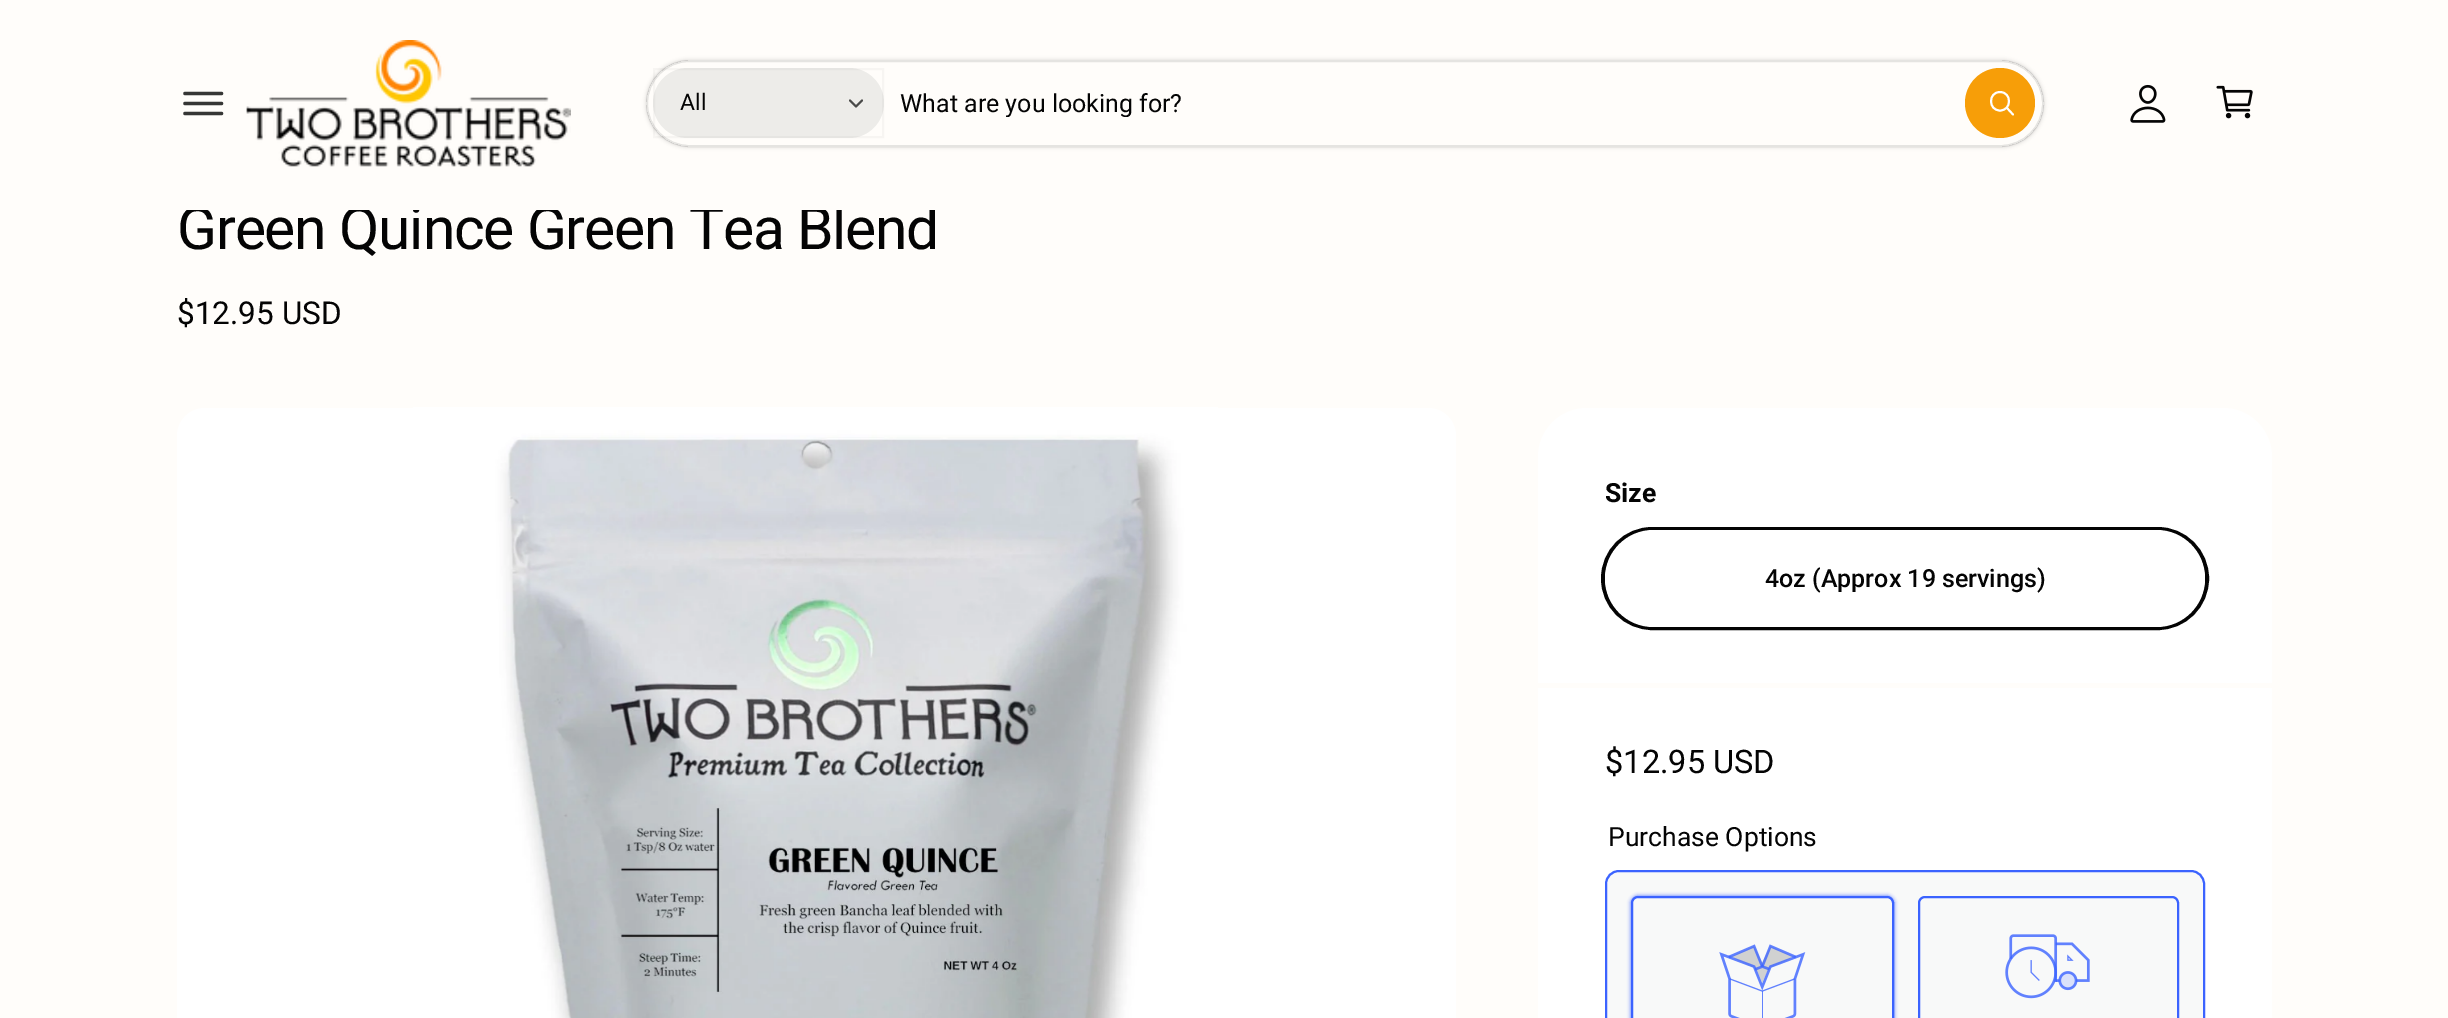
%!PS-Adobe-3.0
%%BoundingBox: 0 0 2448 1018
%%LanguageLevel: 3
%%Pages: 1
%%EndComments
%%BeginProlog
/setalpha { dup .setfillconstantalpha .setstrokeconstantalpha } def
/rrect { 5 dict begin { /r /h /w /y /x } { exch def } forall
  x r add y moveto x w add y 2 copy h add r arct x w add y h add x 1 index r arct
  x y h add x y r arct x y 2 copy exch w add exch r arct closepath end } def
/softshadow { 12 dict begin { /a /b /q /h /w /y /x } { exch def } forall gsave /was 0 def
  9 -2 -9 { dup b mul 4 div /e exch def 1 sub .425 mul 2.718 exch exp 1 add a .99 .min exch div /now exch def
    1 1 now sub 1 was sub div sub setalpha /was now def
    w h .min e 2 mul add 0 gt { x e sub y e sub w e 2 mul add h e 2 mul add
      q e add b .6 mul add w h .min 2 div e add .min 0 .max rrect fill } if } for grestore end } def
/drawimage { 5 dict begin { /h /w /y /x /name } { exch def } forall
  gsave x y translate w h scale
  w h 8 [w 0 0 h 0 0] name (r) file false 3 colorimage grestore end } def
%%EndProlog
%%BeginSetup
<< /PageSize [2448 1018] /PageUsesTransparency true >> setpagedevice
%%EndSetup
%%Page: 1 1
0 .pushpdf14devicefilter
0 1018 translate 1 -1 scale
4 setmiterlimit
1 0.992 0.98 setrgbcolor
0 0 2448 1018 rectfill
0.212 0.212 0.208 setrgbcolor
3.3 setlinewidth
1 setlinecap
newpath 185 93.5 moveto 221.5 93.5 lineto 185 103.5 moveto 221.5 103.5 lineto 185 113.5 moveto 221.5 113.5 lineto stroke
(images/1.raw) 246 40 325 127 drawimage
0.929 0.925 0.914 setrgbcolor
653 68 231 70 35 rrect fill
0.03 setalpha
0.016 setgray
2 setlinewidth
0 setlinecap
654 69 229 68 rectstroke
1 setalpha
0.29 0.29 0.286 setrgbcolor
1 setlinecap
1 setlinejoin
newpath 850 100.5 moveto 856 106.5 lineto 862 100.5 lineto stroke
0.969 0.62 0.031 setrgbcolor
newpath 2000 103 35 0 360 arc closepath fill
1 setgray
1.9 setlinewidth
0 setlinecap
0 setlinejoin
newpath 2000 92 moveto 1988 92 1988 110.5 2000 110.5 curveto 2012 110.5 2012 92 2000 92 curveto closepath stroke
1 setlinecap
newpath 2007 108 moveto 2013 114.5 lineto stroke
gsave
newpath 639 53 moveto 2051 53 lineto 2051 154 lineto 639 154 lineto closepath 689.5 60 moveto 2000.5 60 lineto 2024.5 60 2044 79.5 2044 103.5 curveto 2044 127.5 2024.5 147 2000.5 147 curveto 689.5 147 lineto 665.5 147 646 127.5 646 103.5 curveto 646 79.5 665.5 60 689.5 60 curveto closepath eoclip newpath
0 setgray
646 60 1398 87 43.5 2 0.15 softshadow
grestore
0.1 setalpha
0.016 setgray
2 setlinewidth
0 setlinecap
647 61 1396 85 42.5 rrect stroke
1 setalpha
(images/2.raw) 2130 84 36 39 drawimage
(images/3.raw) 2216 85 37 34 drawimage
1 setgray
177 408 1279 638 28 rrect fill
(images/4.raw) 413 407 805 611 drawimage
1538 408 734 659 49 rrect fill
0.016 setgray
4 setlinewidth
1603 529 604 99 49.5 rrect stroke
1 setgray
1605 530 600 97 48.5 rrect fill
1 0.992 0.98 setrgbcolor
1538 683 734 5 rectfill
0.973 0.976 0.976 setrgbcolor
1606 871 598 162 13 rrect gsave fill grestore
0.231 0.388 1 setrgbcolor
2 setlinewidth
stroke
gsave
newpath 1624 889 moveto 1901 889 lineto 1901 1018 lineto 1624 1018 lineto closepath 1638 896 moveto 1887 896 lineto 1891 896 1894 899 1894 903 curveto 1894 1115 lineto 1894 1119 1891 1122 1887 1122 curveto 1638 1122 lineto 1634 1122 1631 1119 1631 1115 curveto 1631 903 lineto 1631 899 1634 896 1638 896 curveto closepath eoclip newpath
1631 896 263 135 7 2 1 softshadow
grestore
1632 897 261 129 6 rrect stroke
(images/5.raw) 1719 944 87 74 drawimage
1919 897 259 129 6 rrect stroke
(images/6.raw) 2005 934 85 65 drawimage
/Roboto-Regular [23 0 0 -23 0 0] selectfont
0.016 setgray
680 110 moveto (All) show
gsave
900 89 1118 28 rectclip
/Roboto-Regular [25 0 0 -25 0 0] selectfont
900 112 moveto (What are you looking for?) show
grestore
/Roboto-Regular [58.75 0 0 -58.75 0 0] selectfont
177 249 moveto -1.2 0 (Green Quince Green Tea Blend) ashow
1 0.992 0.98 setrgbcolor
186 204 750 6 rectfill
/Roboto-Regular [31.5 0 0 -31.5 0 0] selectfont
0.016 setgray
177 324 moveto ($12.95 USD) show
/Roboto-Bold [26.5 0 0 -26.5 0 0] selectfont
1605 502 moveto (Size) show
/Roboto-Medium [25 0 0 -25 0 0] selectfont
1765 587 moveto (4oz \(Approx 19 servings\)) show
/Roboto-Regular [32.5 0 0 -32.5 0 0] selectfont
1605 773 moveto ($12.95 USD) show
/Roboto-Regular [26.5 0 0 -26.5 0 0] selectfont
1608 846 moveto (Purchase Options) show
.poppdf14devicefilter showpage
%%EOF
